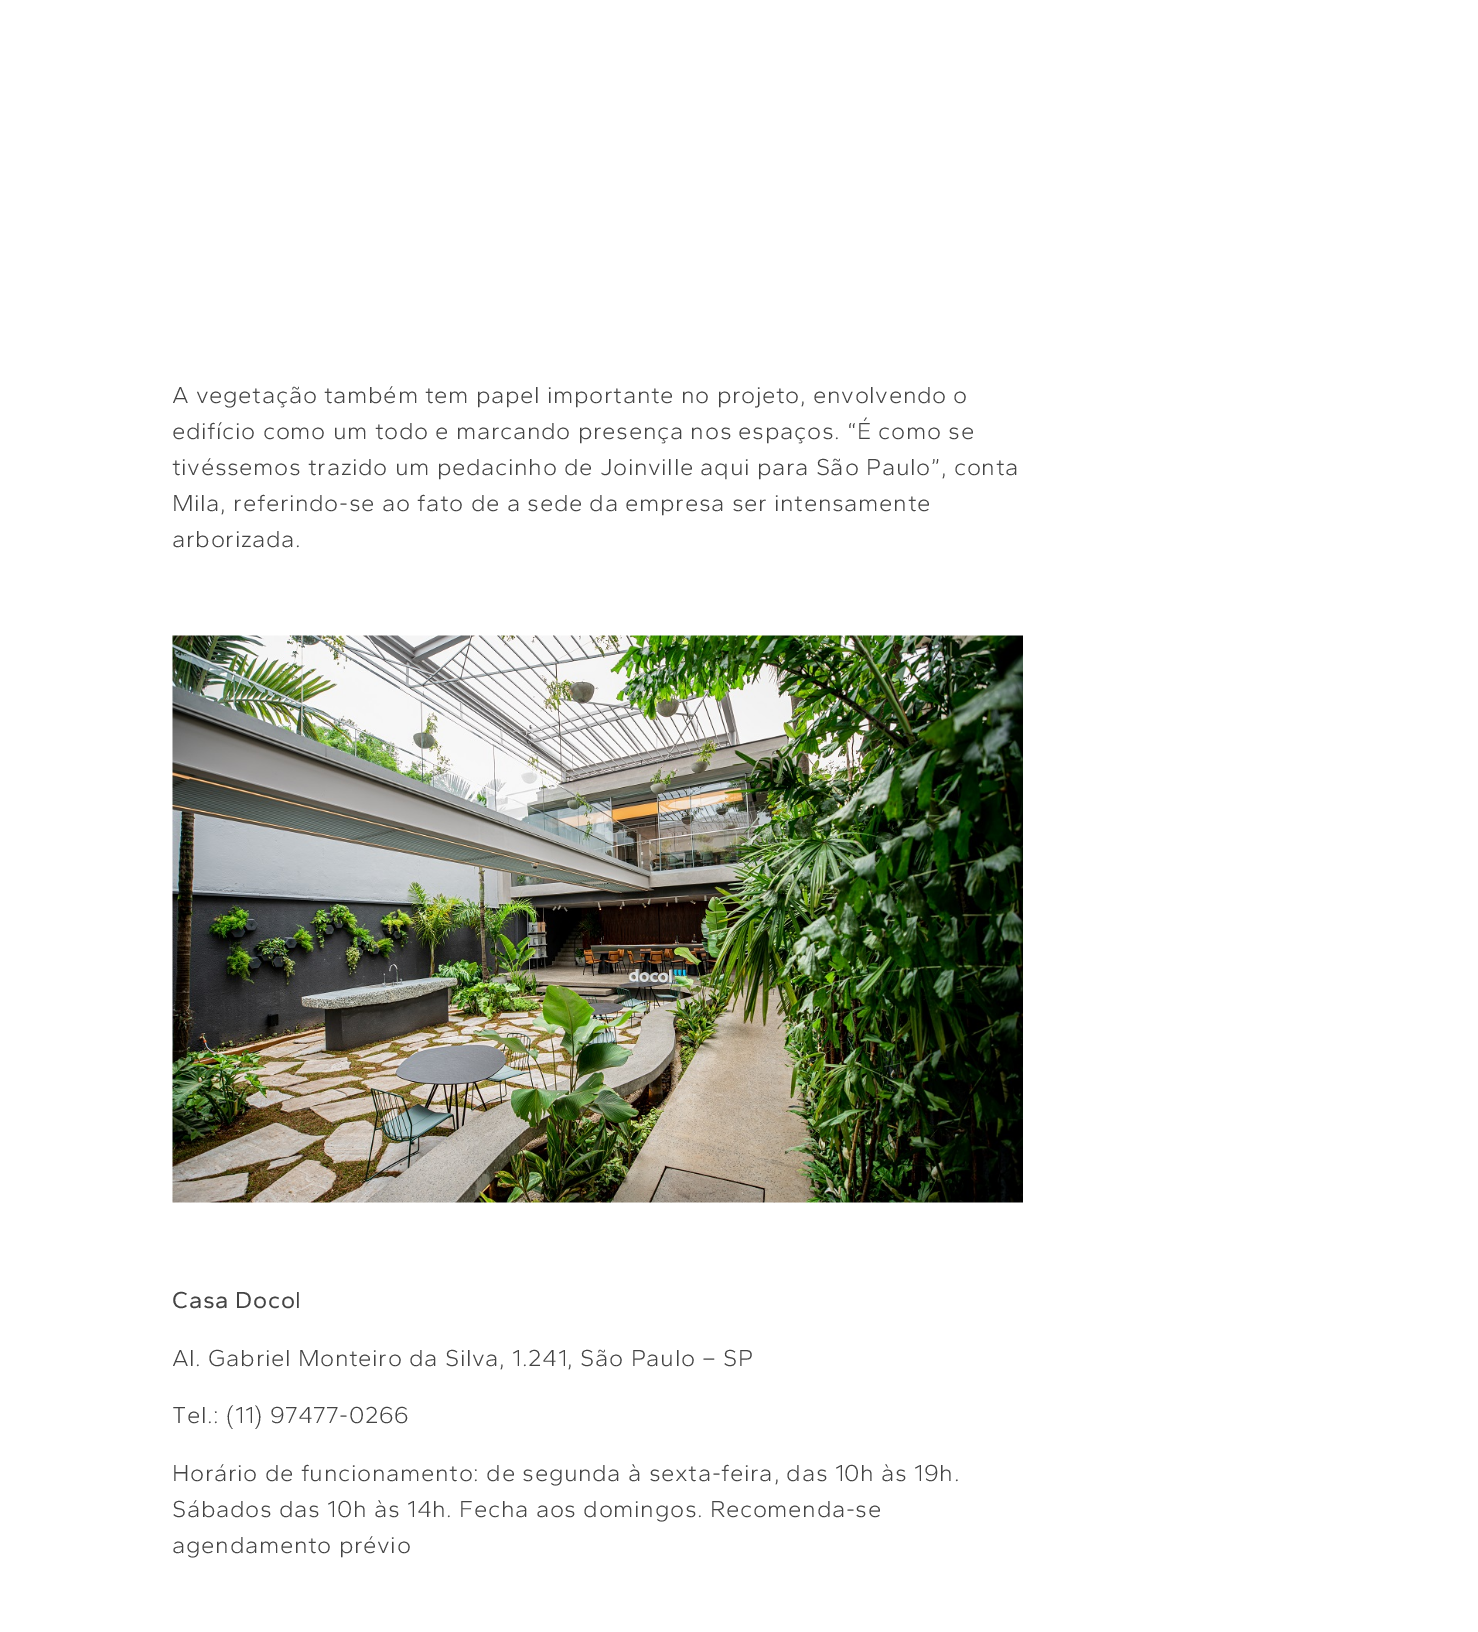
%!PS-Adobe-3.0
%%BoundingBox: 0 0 1478 1632
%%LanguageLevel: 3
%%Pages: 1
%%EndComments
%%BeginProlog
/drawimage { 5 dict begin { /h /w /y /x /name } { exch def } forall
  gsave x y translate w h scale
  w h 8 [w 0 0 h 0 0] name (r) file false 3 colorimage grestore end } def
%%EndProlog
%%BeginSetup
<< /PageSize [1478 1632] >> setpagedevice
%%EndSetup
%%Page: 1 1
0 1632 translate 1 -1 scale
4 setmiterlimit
1 setgray
0 0 1478 1632 rectfill
(images/1.raw) 172 635 851 568 drawimage
/Gantari-Light [24 0 0 -24 0 0] selectfont
0.267 setgray
172 403 moveto 0.6 0 (A vegetação também tem papel importante no projeto, envolvendo o) ashow
172 439 moveto 0.6 0 (edifício como um todo e marcando presença nos espaços. “É como se) ashow
172 475 moveto 0.6 0 (tivéssemos trazido um pedacinho de Joinville aqui para São Paulo”, conta) ashow
172 511 moveto 0.6 0 (Mila, referindo-se ao fato de a sede da empresa ser intensamente) ashow
172 547 moveto 0.6 0 (arborizada.) ashow
/Gantari-Regular [24 0 0 -24 0 0] selectfont
172 1308 moveto 0.6 0 (Casa Docol) ashow
/Gantari-Light [24 0 0 -24 0 0] selectfont
172 1366 moveto 0.6 0 (Al. Gabriel Monteiro da Silva, 1.241, São Paulo – SP) ashow
172 1423 moveto 0.6 0 (Tel.: \(11\) 97477-0266) ashow
172 1481 moveto 0.6 0 (Horário de funcionamento: de segunda à sexta-feira, das 10h às 19h.) ashow
172 1517 moveto 0.6 0 (Sábados das 10h às 14h. Fecha aos domingos. Recomenda-se) ashow
172 1553 moveto 0.6 0 (agendamento prévio) ashow
showpage
%%EOF
